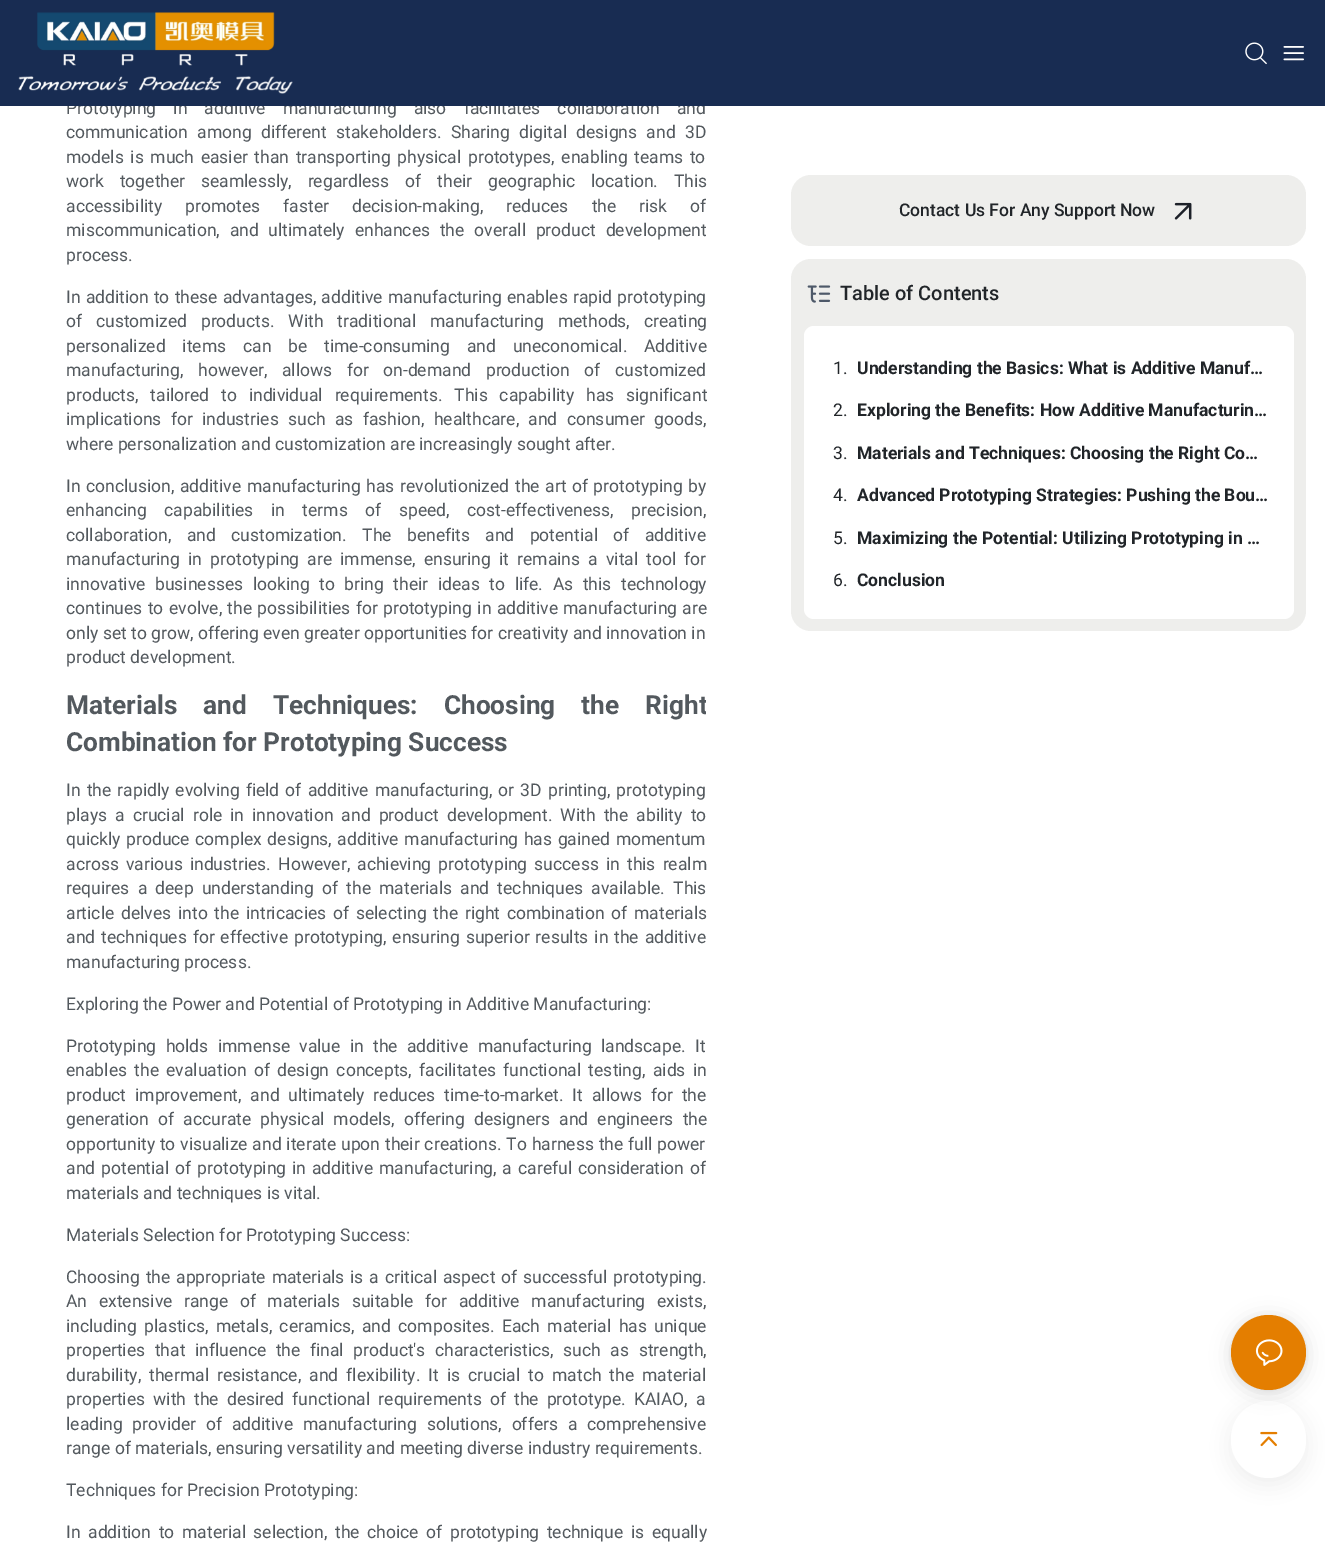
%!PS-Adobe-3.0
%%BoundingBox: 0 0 1325 1543
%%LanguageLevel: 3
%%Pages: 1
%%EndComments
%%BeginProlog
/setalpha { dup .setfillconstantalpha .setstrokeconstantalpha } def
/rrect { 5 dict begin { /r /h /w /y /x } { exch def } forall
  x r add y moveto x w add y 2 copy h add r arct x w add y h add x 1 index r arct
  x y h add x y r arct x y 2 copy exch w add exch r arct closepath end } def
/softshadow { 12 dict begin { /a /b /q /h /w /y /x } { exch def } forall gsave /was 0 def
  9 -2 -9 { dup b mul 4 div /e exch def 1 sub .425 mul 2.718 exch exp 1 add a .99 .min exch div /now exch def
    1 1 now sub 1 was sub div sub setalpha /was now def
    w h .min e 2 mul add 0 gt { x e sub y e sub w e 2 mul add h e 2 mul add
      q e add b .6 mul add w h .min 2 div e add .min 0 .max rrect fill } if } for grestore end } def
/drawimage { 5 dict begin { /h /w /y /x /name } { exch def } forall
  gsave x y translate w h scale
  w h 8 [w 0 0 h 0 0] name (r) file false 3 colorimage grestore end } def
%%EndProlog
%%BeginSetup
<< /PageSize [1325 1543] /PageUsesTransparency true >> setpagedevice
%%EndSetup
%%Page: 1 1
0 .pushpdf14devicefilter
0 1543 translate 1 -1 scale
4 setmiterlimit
1 setgray
0 0 1325 1543 rectfill
0.933 0.933 0.925 setrgbcolor
791 175 515 71 20 rrect fill
(images/4.raw) 1174 202 18 18 drawimage
791 259 515 372 20 rrect fill
(images/5.raw) 807 285 24 18 drawimage
1 setgray
804 326 490 293 10 rrect fill
0.157 0.184 0.212 setrgbcolor
1231 1408 75 76 37.5 9.5 0.08 softshadow
1 setgray
1231 1401 75 77 37.5 rrect fill
0 setgray
1231 1318 75 75 37.5 10 0.12 softshadow
1231 1316 75 75 37.5 2.5 0.06 softshadow
0.894 0.494 0 setrgbcolor
newpath 1268.5 1352.5 37.5 0 360 arc closepath fill
(images/6.raw) 1255 1339 28 27 drawimage
(images/7.raw) 1260 1431 18 16 drawimage
/Roboto-Regular [17.5 0 0 -17.5 0 0] selectfont
0.325 0.349 0.369 setrgbcolor
66 114 moveto 12.75 0 32 (Prototyping in additive manufacturing also facilitates collaboration and) widthshow
0.094 0.173 0.322 setrgbcolor
0 0 1325 106 rectfill
(images/2.raw) 1245 42 22 23 drawimage
(images/3.raw) 1283 46 21 15 drawimage
(images/1.raw) 18 12 275 82 drawimage
0.325 0.349 0.369 setrgbcolor
66 138 moveto 5 0 32 (communication among different stakeholders. Sharing digital designs and 3D) widthshow
66 163 moveto 2.25 0 32 (models is much easier than transporting physical prototypes, enabling teams to) widthshow
66 187 moveto 11.5 0 32 (work together seamlessly, regardless of their geographic location. This) widthshow
gsave
66 0 640 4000 rectclip
66 212 moveto 18.75 0 32 (accessibility promotes faster decision-making, reduces the risk of) widthshow
grestore
66 236 moveto 5.5 0 32 (miscommunication, and ultimately enhances the overall product development) widthshow
66 261 moveto (process.) show
66 303 moveto 0.75 0 32 (In addition to these advantages, additive manufacturing enables rapid prototyping) widthshow
66 327 moveto 9.5 0 32 (of customized products. With traditional manufacturing methods, creating) widthshow
66 352 moveto 12.5 0 32 (personalized items can be time-consuming and uneconomical. Additive) widthshow
66 376 moveto 10.25 0 32 (manufacturing, however, allows for on-demand production of customized) widthshow
66 401 moveto 7.5 0 32 (products, tailored to individual requirements. This capability has significant) widthshow
66 425 moveto 5 0 32 (implications for industries such as fashion, healthcare, and consumer goods,) widthshow
66 450 moveto (where personalization and customization are increasingly sought after.) show
66 492 moveto 1.25 0 32 (In conclusion, additive manufacturing has revolutionized the art of prototyping by) widthshow
66 516 moveto 13.25 0 32 (enhancing capabilities in terms of speed, cost-effectiveness, precision,) widthshow
66 541 moveto 11 0 32 (collaboration, and customization. The benefits and potential of additive) widthshow
66 565 moveto 3.75 0 32 (manufacturing in prototyping are immense, ensuring it remains a vital tool for) widthshow
66 590 moveto 5.25 0 32 (innovative businesses looking to bring their ideas to life. As this technology) widthshow
66 614 moveto 1 0 32 (continues to evolve, the possibilities for prototyping in additive manufacturing are) widthshow
66 639 moveto (only set to grow, offering even greater opportunities for creativity and innovation in) show
66 663 moveto (product development.) show
gsave
66 0 640 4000 rectclip
/Roboto-Bold [26.25 0 0 -26.25 0 0] selectfont
66 714 moveto 19.5 0 32 (Materials and Techniques: Choosing the Right) widthshow
grestore
/Roboto-Bold [26.25 0 0 -26.25 0 0] selectfont
66 751 moveto (Combination for Prototyping Success) show
/Roboto-Regular [17.5 0 0 -17.5 0 0] selectfont
66 796 moveto 1.75 0 32 (In the rapidly evolving field of additive manufacturing, or 3D printing, prototyping) widthshow
66 821 moveto 3.75 0 32 (plays a crucial role in innovation and product development. With the ability to) widthshow
66 845 moveto 1.25 0 32 (quickly produce complex designs, additive manufacturing has gained momentum) widthshow
66 870 moveto 2.75 0 32 (across various industries. However, achieving prototyping success in this realm) widthshow
66 894 moveto 3.9 0 32 (requires a deep understanding of the materials and techniques available. This) widthshow
66 919 moveto 2.5 0 32 (article delves into the intricacies of selecting the right combination of materials) widthshow
66 943 moveto 1.6 0 32 (and techniques for effective prototyping, ensuring superior results in the additive) widthshow
66 968 moveto (manufacturing process.) show
66 1010 moveto (Exploring the Power and Potential of Prototyping in Additive Manufacturing:) show
66 1052 moveto 5 0 32 (Prototyping holds immense value in the additive manufacturing landscape. It) widthshow
66 1076 moveto 3 0 32 (enables the evaluation of design concepts, facilitates functional testing, aids in) widthshow
66 1101 moveto 4.5 0 32 (product improvement, and ultimately reduces time-to-market. It allows for the) widthshow
66 1125 moveto 4.75 0 32 (generation of accurate physical models, offering designers and engineers the) widthshow
66 1150 moveto 0.5 0 32 (opportunity to visualize and iterate upon their creations. To harness the full power) widthshow
gsave
66 0 640 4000 rectclip
66 1174 moveto 1.6 0 32 (and potential of prototyping in additive manufacturing, a careful consideration of) widthshow
grestore
66 1199 moveto (materials and techniques is vital.) show
66 1241 moveto (Materials Selection for Prototyping Success:) show
66 1283 moveto 1.5 0 32 (Choosing the appropriate materials is a critical aspect of successful prototyping.) widthshow
66 1307 moveto 7.25 0 32 (An extensive range of materials suitable for additive manufacturing exists,) widthshow
66 1332 moveto 3 0 32 (including plastics, metals, ceramics, and composites. Each material has unique) widthshow
66 1356 moveto 5.25 0 32 (properties that influence the final product's characteristics, such as strength,) widthshow
66 1381 moveto 3.75 0 32 (durability, thermal resistance, and flexibility. It is crucial to match the material) widthshow
66 1405 moveto 3.75 0 32 (properties with the desired functional requirements of the prototype. KAIAO, a) widthshow
66 1430 moveto 5.5 0 32 (leading provider of additive manufacturing solutions, offers a comprehensive) widthshow
66 1454 moveto (range of materials, ensuring versatility and meeting diverse industry requirements.) show
66 1496 moveto (Techniques for Precision Prototyping:) show
66 1538 moveto 3.25 0 32 (In addition to material selection, the choice of prototyping technique is equally) widthshow
/Roboto-Medium [17.5 0 0 -17.5 0 0] selectfont
0.129 0.145 0.161 setrgbcolor
899 216 moveto (Contact Us For Any Support Now) show
/Roboto-Medium [20 0 0 -20 0 0] selectfont
840 300 moveto (Table of Contents) show
/Roboto-Regular [17.5 0 0 -17.5 0 0] selectfont
833 374 moveto (1.) show
/Roboto-Bold [17.5 0 0 -17.5 0 0] selectfont
857 374 moveto (Understanding the Basics: What is Additive Manuf…) show
/Roboto-Regular [17.5 0 0 -17.5 0 0] selectfont
833 416 moveto (2.) show
/Roboto-Bold [17.5 0 0 -17.5 0 0] selectfont
857 416 moveto (Exploring the Benefits: How Additive Manufacturin…) show
/Roboto-Regular [17.5 0 0 -17.5 0 0] selectfont
833 459 moveto (3.) show
/Roboto-Bold [17.5 0 0 -17.5 0 0] selectfont
857 459 moveto (Materials and Techniques: Choosing the Right Co…) show
/Roboto-Regular [17.5 0 0 -17.5 0 0] selectfont
833 501 moveto (4.) show
/Roboto-Bold [17.5 0 0 -17.5 0 0] selectfont
857 501 moveto (Advanced Prototyping Strategies: Pushing the Bou…) show
/Roboto-Regular [17.5 0 0 -17.5 0 0] selectfont
833 544 moveto (5.) show
/Roboto-Bold [17.5 0 0 -17.5 0 0] selectfont
857 544 moveto (Maximizing the Potential: Utilizing Prototyping in …) show
/Roboto-Regular [17.5 0 0 -17.5 0 0] selectfont
833 586 moveto (6.) show
/Roboto-Bold [17.5 0 0 -17.5 0 0] selectfont
857 586 moveto (Conclusion) show
.poppdf14devicefilter showpage
%%EOF
